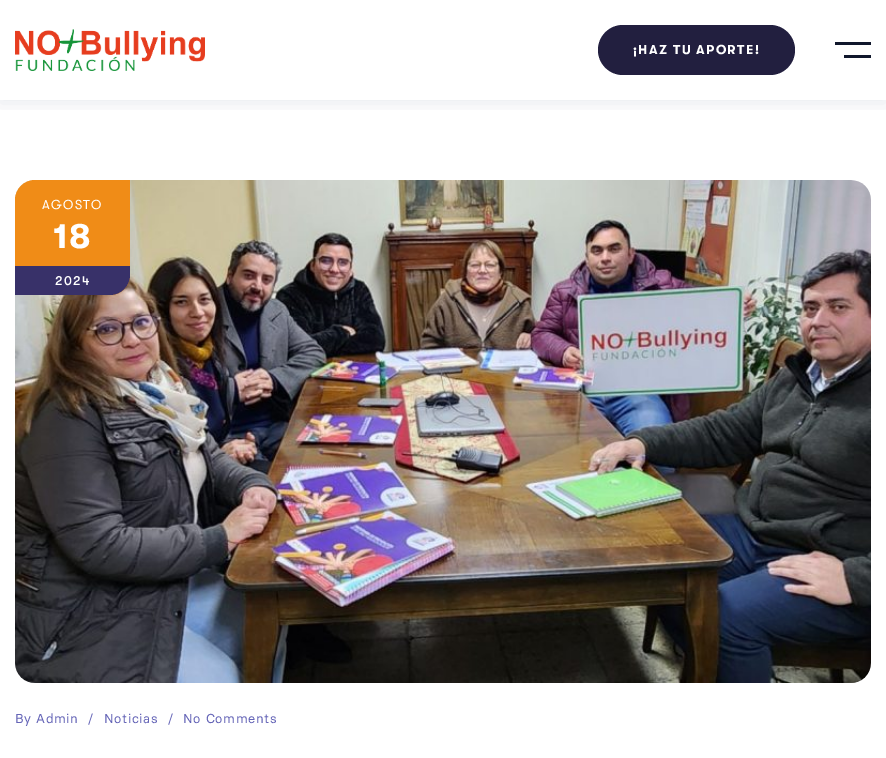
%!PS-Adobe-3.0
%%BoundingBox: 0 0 886 758
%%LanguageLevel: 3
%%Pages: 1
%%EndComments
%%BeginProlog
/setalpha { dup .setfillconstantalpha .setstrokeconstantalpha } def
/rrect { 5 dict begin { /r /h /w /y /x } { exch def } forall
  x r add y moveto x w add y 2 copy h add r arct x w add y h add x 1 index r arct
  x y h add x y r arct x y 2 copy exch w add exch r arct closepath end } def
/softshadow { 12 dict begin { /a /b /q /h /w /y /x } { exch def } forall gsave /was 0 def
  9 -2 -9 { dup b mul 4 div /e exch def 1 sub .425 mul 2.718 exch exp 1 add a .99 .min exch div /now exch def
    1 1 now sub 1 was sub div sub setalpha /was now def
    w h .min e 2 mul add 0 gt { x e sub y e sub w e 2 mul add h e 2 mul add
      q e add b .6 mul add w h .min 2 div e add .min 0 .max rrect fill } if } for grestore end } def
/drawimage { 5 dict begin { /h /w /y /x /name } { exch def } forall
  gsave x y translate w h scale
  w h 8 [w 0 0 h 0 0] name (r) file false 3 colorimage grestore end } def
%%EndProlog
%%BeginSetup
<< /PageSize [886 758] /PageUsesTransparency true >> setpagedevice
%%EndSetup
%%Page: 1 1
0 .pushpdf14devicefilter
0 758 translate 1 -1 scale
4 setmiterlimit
1 setgray
0 0 886 758 rectfill
gsave
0 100 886 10 rectclip
0.008 0.082 0.306 setrgbcolor
0 3 886 100 0 9 0.09 softshadow
grestore
(images/1.raw) 15 29 190 42 drawimage
0.133 0.122 0.247 setrgbcolor
598 25 197 50 25 rrect fill
0.063 0.09 0.173 setrgbcolor
835 42 36 3 rectfill
844 55 27 3 rectfill
(images/2.raw) 15 180 856 503 drawimage
0.941 0.549 0.09 setrgbcolor
newpath 35 180 moveto 130 180 lineto 130 275 lineto 130 286 121 295 110 295 curveto 15 295 lineto 15 200 lineto 15 189 24 180 35 180 curveto closepath fill
0.22 0.192 0.412 setrgbcolor
newpath 15 266 moveto 130 266 lineto 130 275 lineto 130 286 121 295 110 295 curveto 15 295 lineto closepath fill
/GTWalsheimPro-Bold [13 0 0 -13 0 0] selectfont
1 setgray
633 54 moveto 1.4 0 (¡HAZ TU APORTE!) ashow
/GTWalsheimPro-Regular [13 0 0 -13 0 0] selectfont
42 209 moveto 1.25 0 (AGOSTO) ashow
/GTWalsheimPro-Bold [35 0 0 -35 0 0] selectfont
53 248 moveto 1 0 (18) ashow
/GTWalsheimPro-Medium [13 0 0 -13 0 0] selectfont
55 285 moveto 1.25 0 (2024) ashow
/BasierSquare-Regular [13 0 0 -13 0 0] selectfont
0.396 0.396 0.718 setrgbcolor
15 723 moveto 0.6 0 (By Admin) ashow
88 723 moveto 0.6 0 (/) ashow
104 723 moveto 0.6 0 (Noticias) ashow
168 723 moveto 0.6 0 (/) ashow
183 723 moveto 0.6 0 (No Comments) ashow
.poppdf14devicefilter showpage
%%EOF
